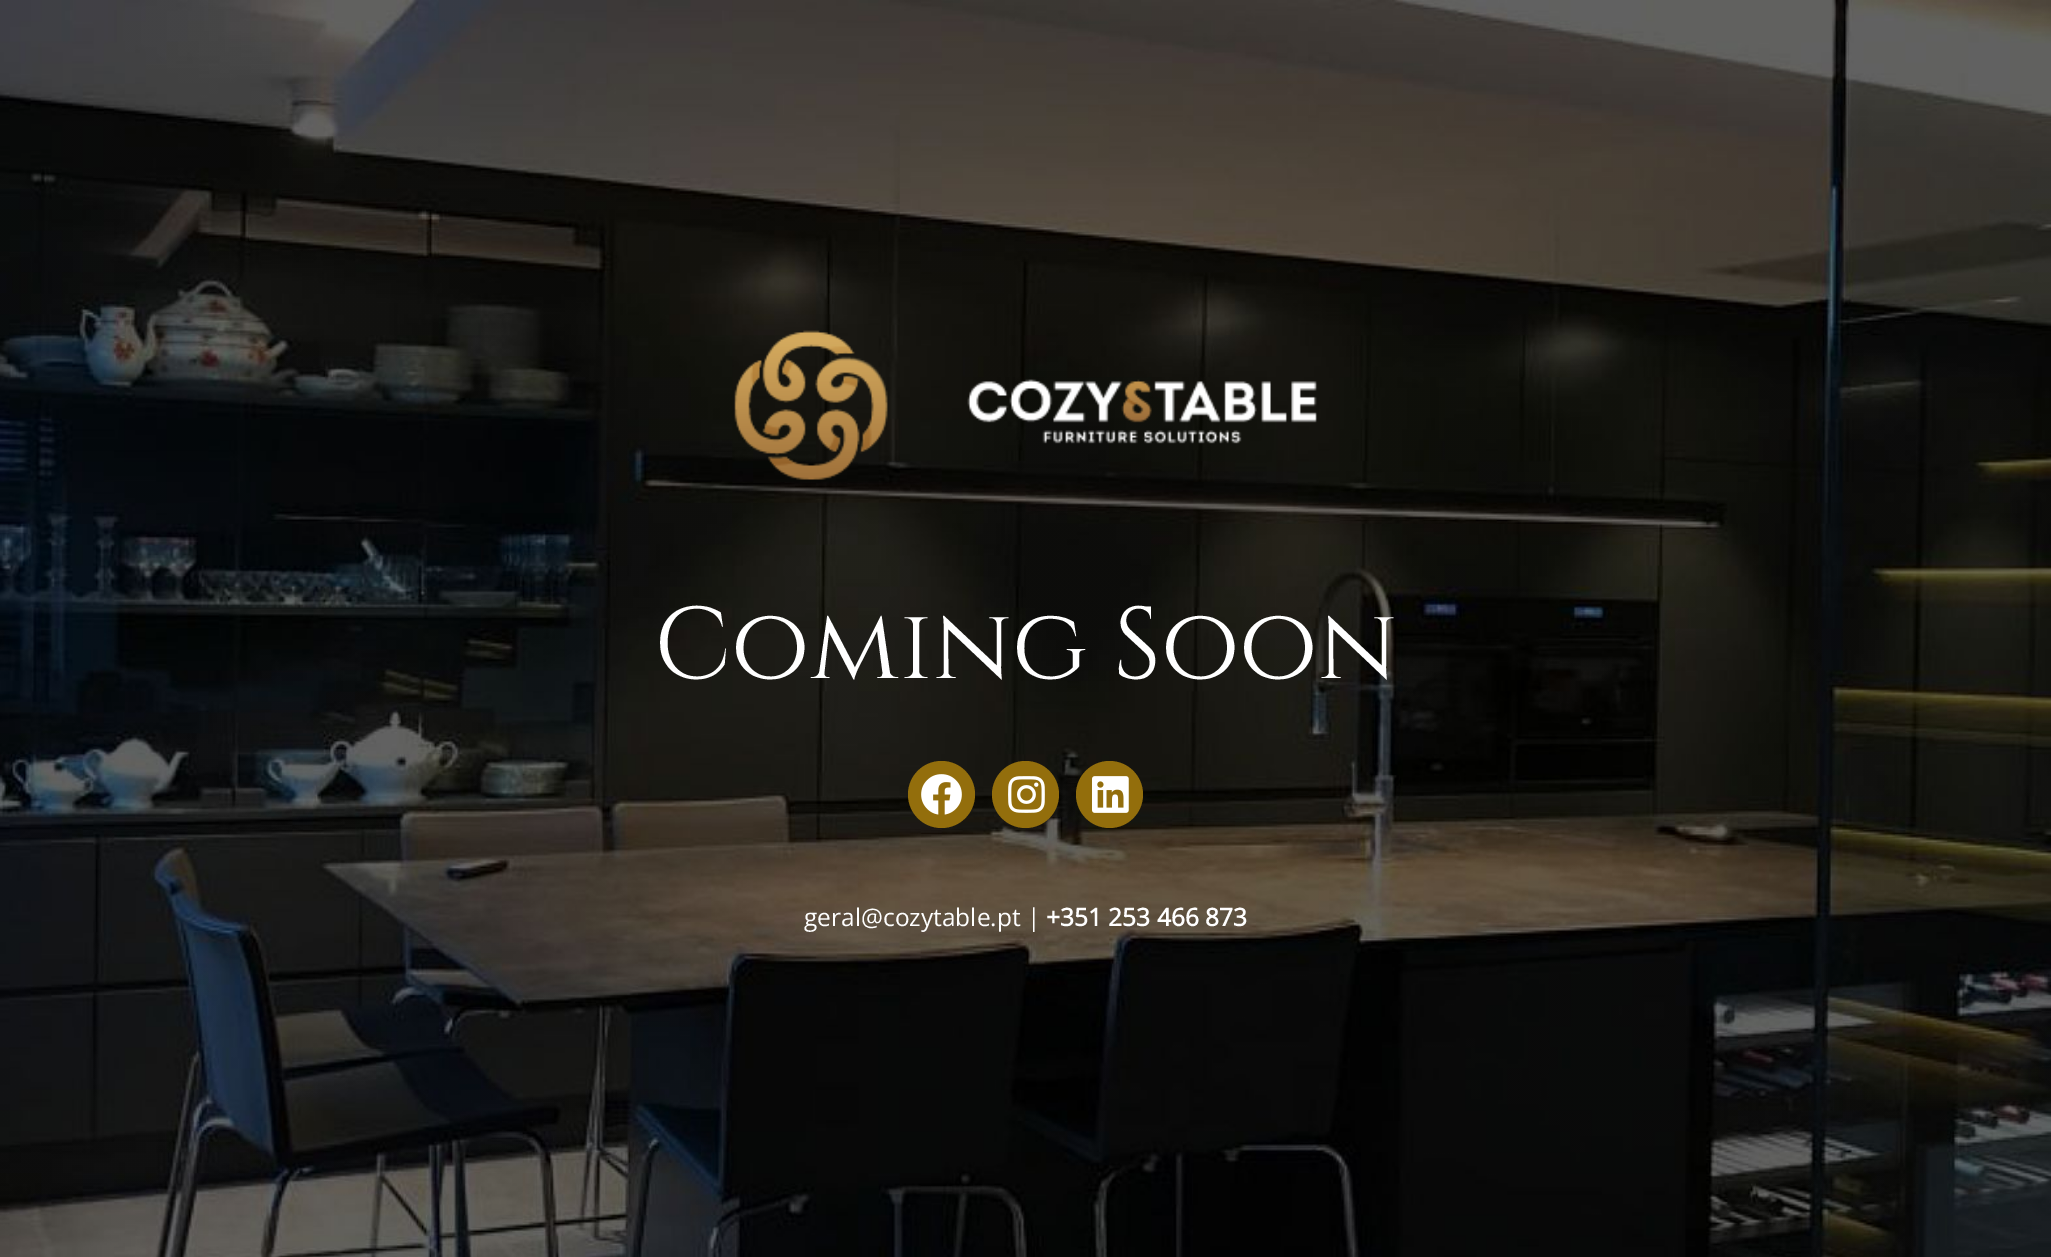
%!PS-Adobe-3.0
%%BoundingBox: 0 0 2051 1257
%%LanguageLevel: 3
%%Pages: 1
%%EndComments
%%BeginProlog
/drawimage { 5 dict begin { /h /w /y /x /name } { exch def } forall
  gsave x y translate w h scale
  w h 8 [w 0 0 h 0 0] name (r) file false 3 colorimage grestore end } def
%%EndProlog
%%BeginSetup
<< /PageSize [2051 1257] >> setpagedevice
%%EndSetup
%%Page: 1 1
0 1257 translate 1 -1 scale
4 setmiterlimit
1 setgray
0 0 2051 1257 rectfill
(images/1.raw) 0 0 2051 1257 drawimage
(images/2.raw) 734 330 583 150 drawimage
0.576 0.431 0.047 setrgbcolor
newpath 941.5 794.5 33.5 0 360 arc closepath fill
(images/3.raw) 921 774 41 41 drawimage
newpath 1025.5 794.5 33.5 0 360 arc closepath fill
(images/4.raw) 1008 776 37 37 drawimage
newpath 1109.5 794.5 33.5 0 360 arc closepath fill
(images/5.raw) 1092 776 37 37 drawimage
/Cinzel-Regular [101.5 0 0 -101.5 0 0] selectfont
1 setgray
654 678 moveto (Coming Soon) show
/OpenSans-Regular [24.5 0 0 -24.5 0 0] selectfont
804 926 moveto (geral@cozytable.pt |) show
/OpenSans-Bold [24.5 0 0 -24.5 0 0] selectfont
1046 926 moveto (+351 253 466 873) show
showpage
%%EOF
